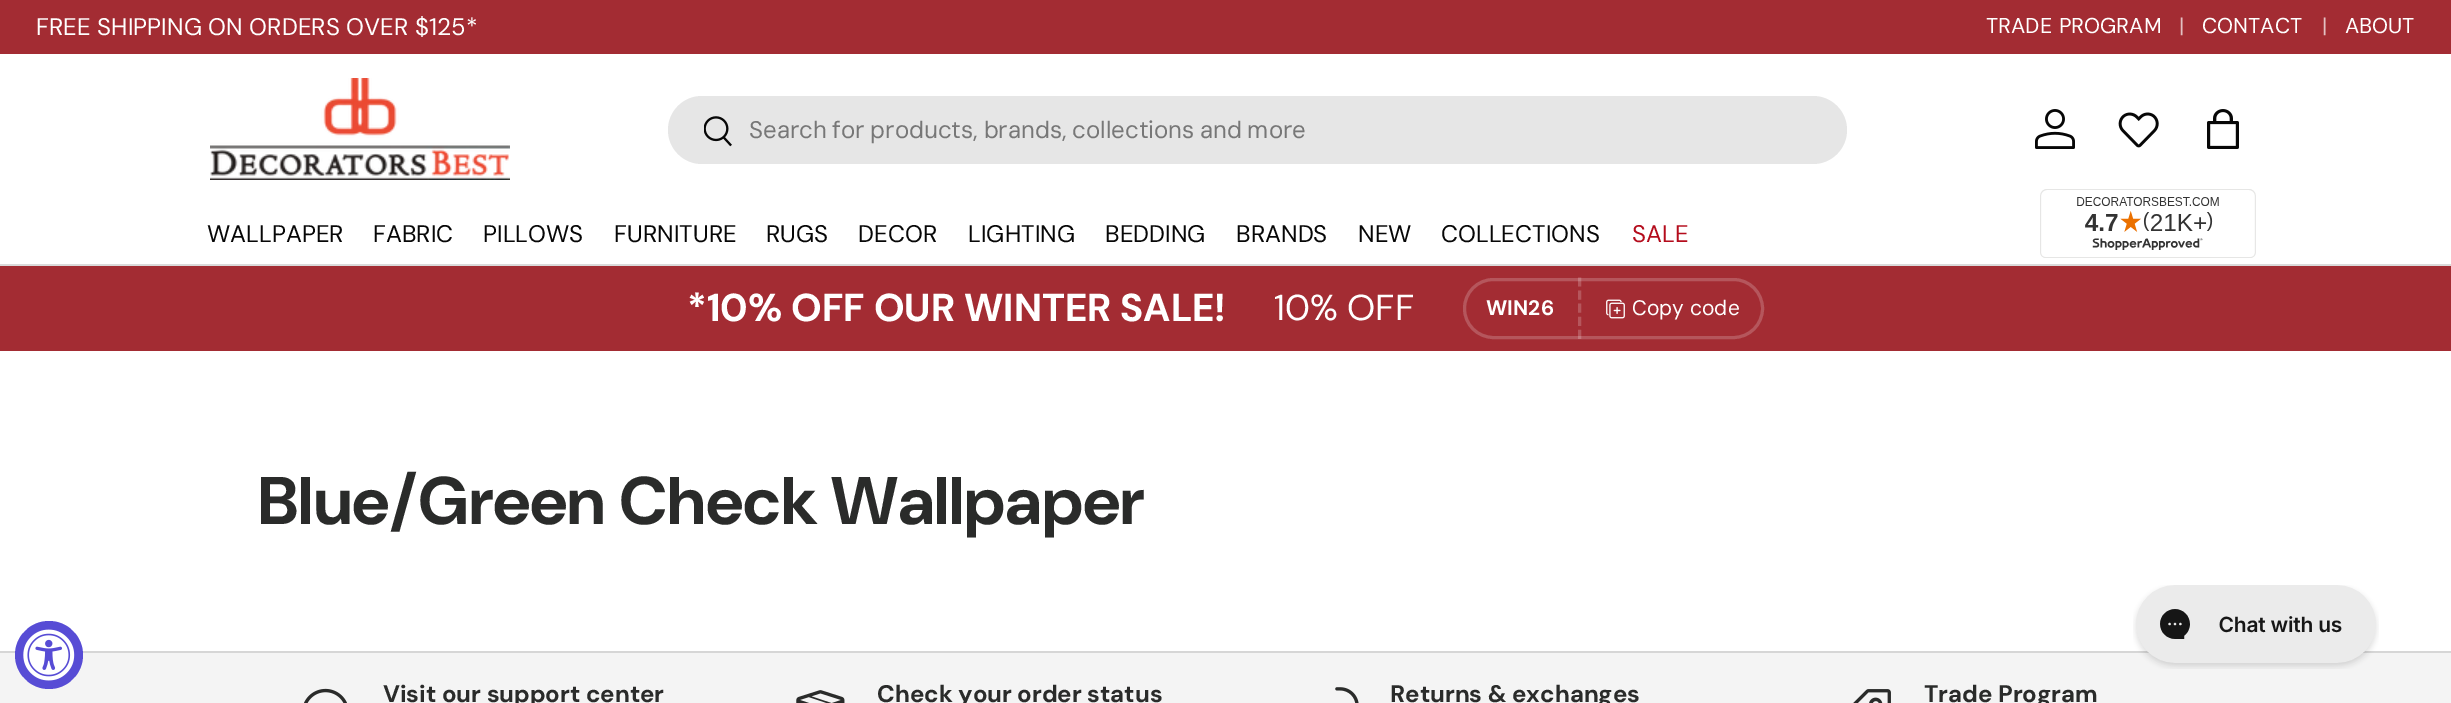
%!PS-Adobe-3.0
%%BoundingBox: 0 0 2451 703
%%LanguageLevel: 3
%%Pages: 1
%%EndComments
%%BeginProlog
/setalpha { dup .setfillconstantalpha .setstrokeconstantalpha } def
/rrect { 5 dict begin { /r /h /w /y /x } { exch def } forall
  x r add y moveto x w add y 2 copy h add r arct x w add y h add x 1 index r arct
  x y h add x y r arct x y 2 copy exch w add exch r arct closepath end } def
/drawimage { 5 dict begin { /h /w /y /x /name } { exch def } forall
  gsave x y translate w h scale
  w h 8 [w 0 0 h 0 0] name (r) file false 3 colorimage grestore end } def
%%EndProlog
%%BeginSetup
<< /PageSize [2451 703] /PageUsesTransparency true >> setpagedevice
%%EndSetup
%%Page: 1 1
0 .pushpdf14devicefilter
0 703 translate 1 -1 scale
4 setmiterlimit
1 setgray
0 0 2451 703 rectfill
0.639 0.173 0.2 setrgbcolor
0 0 2451 54 rectfill
0.855 setgray
0 264 2451 2 rectfill
(images/1.raw) 210 78 300 102 drawimage
0.902 setgray
668 96 1179 68 34 rrect fill
(images/2.raw) 704 116 28 31 drawimage
(images/3.raw) 2035 109 40 40 drawimage
(images/4.raw) 2118 112 41 36 drawimage
(images/5.raw) 2207 109 32 40 drawimage
(images/6.raw) 2040 189 216 69 drawimage
0.639 0.173 0.2 setrgbcolor
0 266 2451 85 rectfill
0.71 0.337 0.361 setrgbcolor
3 setlinewidth
1464.5 279.5 298 58 29 rrect stroke
0.2 setalpha
1 setgray
[9 4.12] 0 setdash
newpath 1579.5 277.5 moveto 1579.5 339 lineto stroke
1 setalpha
(images/7.raw) 1606 299 19 20 drawimage
0.957 setgray
0 653 2451 50 rectfill
0.839 setgray
0 651 2451 2 rectfill
0.341 0.298 0.835 setrgbcolor
newpath 49 655 34 0 360 arc closepath fill
(images/8.raw) 23 629 52 52 drawimage
(images/9.raw) 2133 585 246 84 drawimage
(images/10.raw) 304 688 43 15 drawimage
(images/11.raw) 796 690 49 13 drawimage
(images/12.raw) 1335 687 24 16 drawimage
(images/13.raw) 1853 689 38 14 drawimage
/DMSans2-Regular [24 0 0 -24 0 0] selectfont
1 setgray
36 35 moveto (FREE SHIPPING ON ORDERS OVER $125*) show
/DMSans2-Regular [21.5 0 0 -21.5 0 0] selectfont
1986 33 moveto 1 0 32 (TRADE PROGRAM) widthshow
0.89 0.753 0.761 setrgbcolor
2179 33 moveto (|) show
1 setgray
2202 33 moveto (CONTACT) show
0.89 0.753 0.761 setrgbcolor
2322 33 moveto (|) show
1 setgray
2345 33 moveto (ABOUT) show
/DMSans2-Regular [24 0 0 -24 0 0] selectfont
0.467 setgray
749 138 moveto -1 0 32 (Search for products, brands, collections and more) widthshow
0.027 setgray
207 242 moveto (WALLPAPER) show
373 242 moveto (FABRIC) show
483 242 moveto (PILLOWS) show
614 242 moveto (FURNITURE) show
766 242 moveto (RUGS) show
858 242 moveto (DECOR) show
968 242 moveto (LIGHTING) show
1105 242 moveto (BEDDING) show
1236 242 moveto (BRANDS) show
1358 242 moveto (NEW) show
1441 242 moveto (COLLECTIONS) show
0.706 0.047 0.11 setrgbcolor
1632 242 moveto (SALE) show
/DMSans-Bold [38.9 0 0 -38.9 0 0] selectfont
1 setgray
687 321 moveto (*10% OFF OUR WINTER SALE!) show
/DMSans-Regular [36 0 0 -36 0 0] selectfont
1274 320 moveto (10% OFF) show
/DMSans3-Bold [21 0 0 -21 0 0] selectfont
1486 315 moveto (WIN26) show
/DMSans2-Regular [21 0 0 -21 0 0] selectfont
1632 315 moveto (Copy code) show
/DMSans2-Bold [67.25 0 0 -67.25 0 0] selectfont
0.165 0.169 0.165 setrgbcolor
258 524 moveto (Blue/Green Check Wallpaper) show
/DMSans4-Bold [24 0 0 -24 0 0] selectfont
383 702 moveto (Visit our support center) show
877 702 moveto (Check your order status) show
1390 702 moveto (Returns & exchanges) show
1924 702 moveto (Trade Program) show
.poppdf14devicefilter showpage
%%EOF
